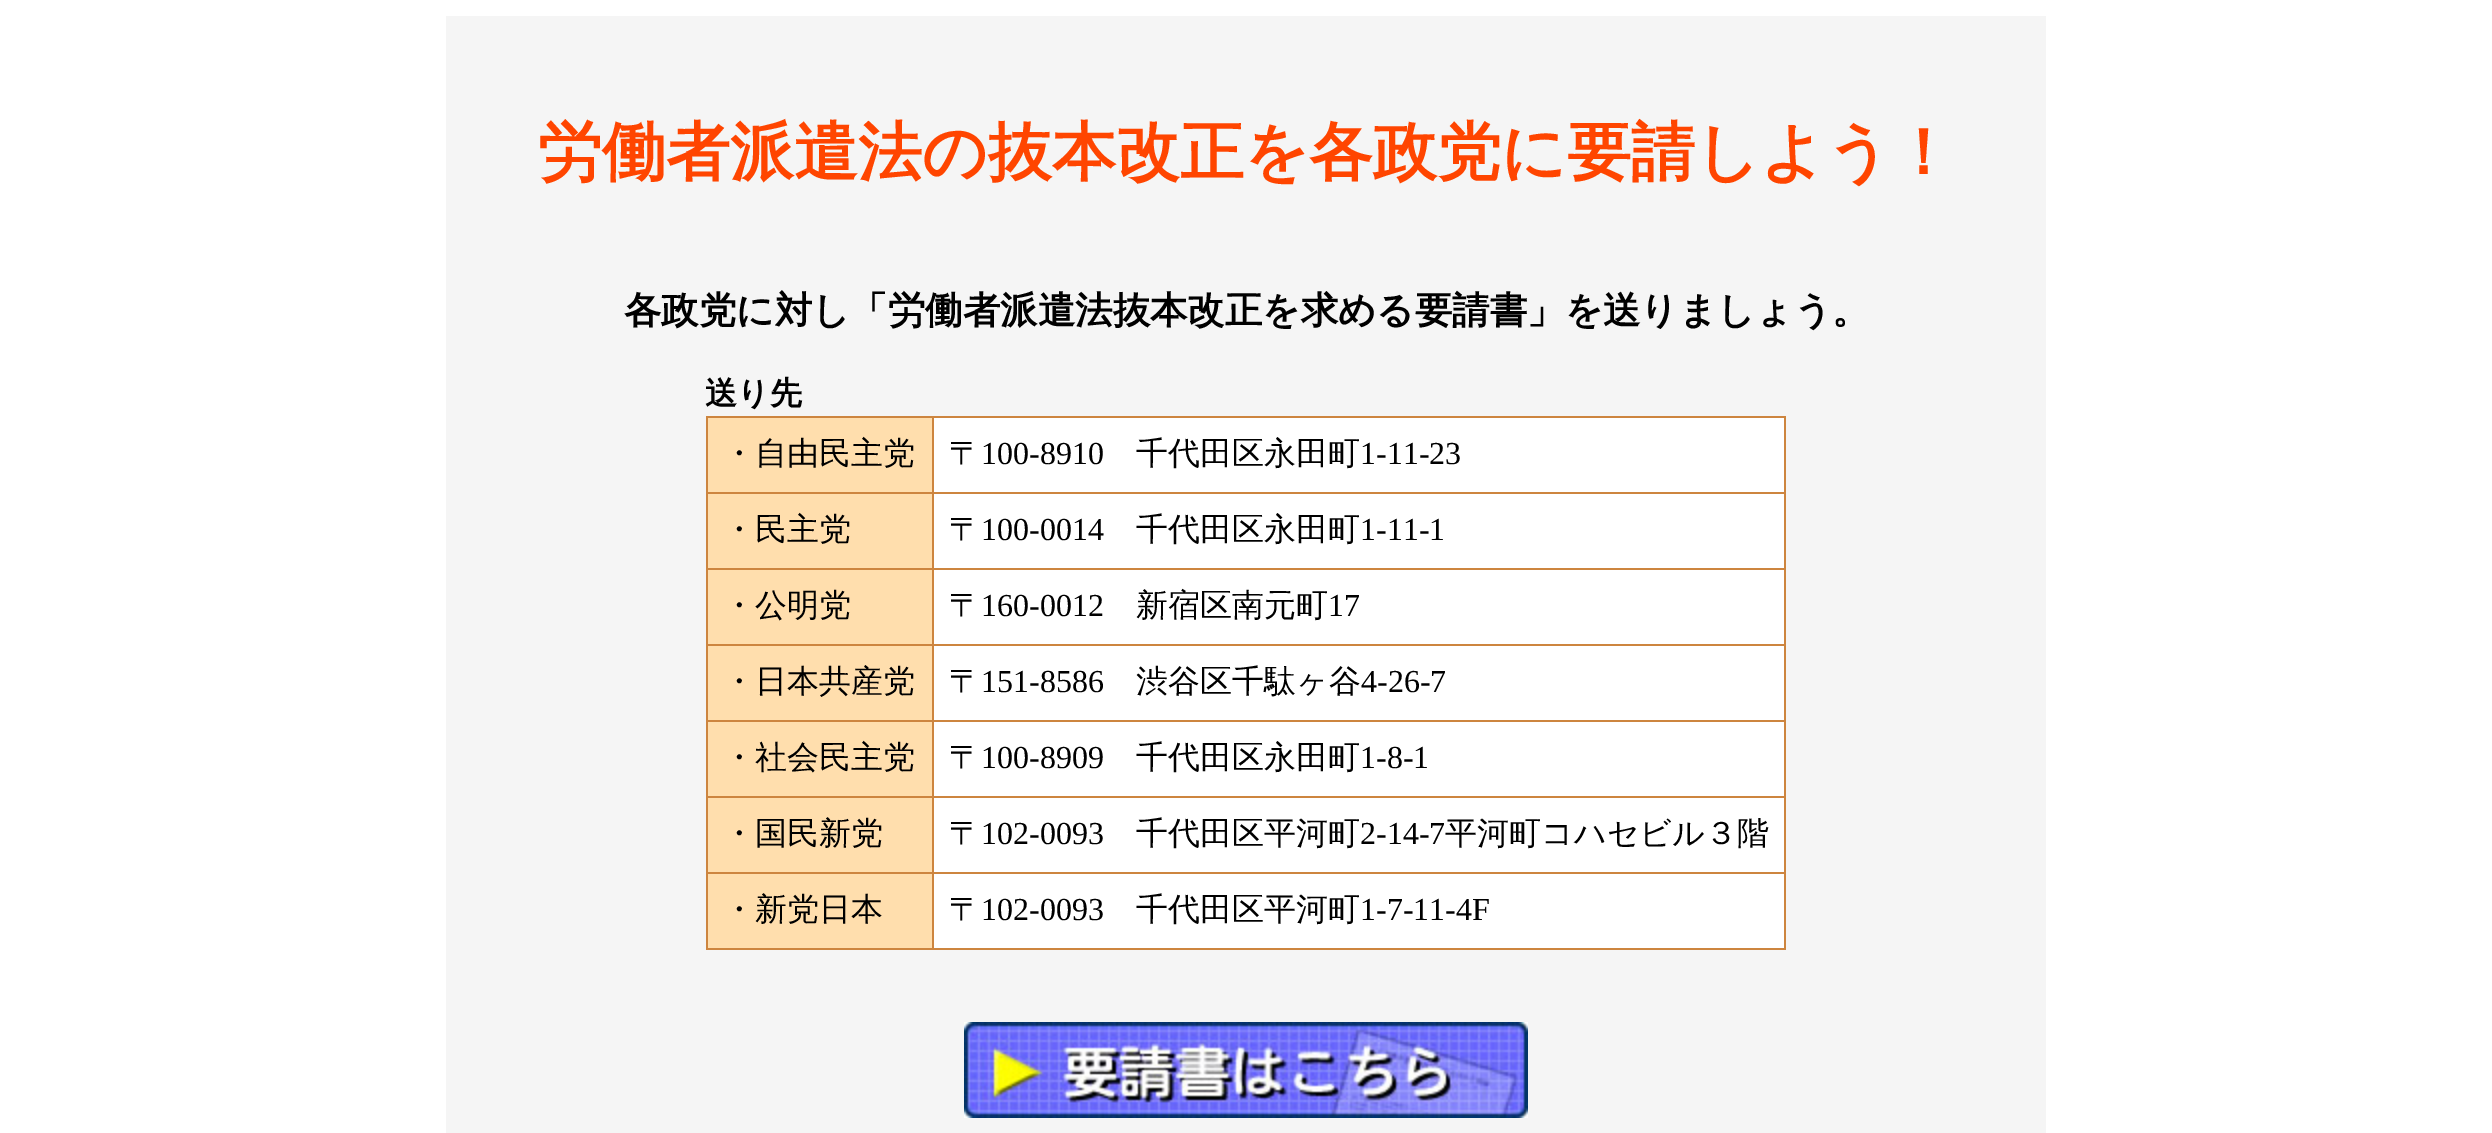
%!PS-Adobe-3.0
%%BoundingBox: 0 0 2492 1133
%%LanguageLevel: 3
%%Pages: 1
%%EndComments
%%BeginProlog
/drawimage { 5 dict begin { /h /w /y /x /name } { exch def } forall
  gsave x y translate w h scale
  w h 8 [w 0 0 h 0 0] name (r) file false 3 colorimage grestore end } def
%%EndProlog
%%BeginSetup
<< /PageSize [2492 1133] >> setpagedevice
%%EndSetup
%%Page: 1 1
0 1133 translate 1 -1 scale
4 setmiterlimit
1 setgray
0 0 2492 1133 rectfill
0.961 setgray
446 16 1600 1117 rectfill
0.804 0.522 0.247 setrgbcolor
706 416 1080 534 rectfill
1 0.871 0.678 setrgbcolor
708 418 224 74 rectfill
1 setgray
934 418 850 74 rectfill
1 0.871 0.678 setrgbcolor
708 494 224 74 rectfill
1 setgray
934 494 850 74 rectfill
1 0.871 0.678 setrgbcolor
708 570 224 74 rectfill
1 setgray
934 570 850 74 rectfill
1 0.871 0.678 setrgbcolor
708 646 224 74 rectfill
1 setgray
934 646 850 74 rectfill
1 0.871 0.678 setrgbcolor
708 722 224 74 rectfill
1 setgray
934 722 850 74 rectfill
1 0.871 0.678 setrgbcolor
708 798 224 74 rectfill
1 setgray
934 798 850 74 rectfill
1 0.871 0.678 setrgbcolor
708 874 224 74 rectfill
1 setgray
934 874 850 74 rectfill
(images/1.raw) 964 1022 564 96 drawimage
/WenQuanYiZenHei-Bold [64 0 0 -64 0 0] selectfont
1 0.271 0 setrgbcolor
538 174 moveto (労働者派遣法の抜本改正を各政党に要請しよう！) show
/WenQuanYiZenHei-Bold [37.45 0 0 -37.45 0 0] selectfont
0 setgray
624 323 moveto (各政党に対し「労働者派遣法抜本改正を求める要請書」を送りましょう。) show
/WenQuanYiZenHei-Bold [32 0 0 -32 0 0] selectfont
705 404 moveto (送り先) show
/WenQuanYiZenHei-Medium [32 0 0 -32 0 0] selectfont
723 464 moveto (・自由民主党) show
949 464 moveto (〒) show
/LiberationSerif-Regular [32 0 0 -32 0 0] selectfont
981 464 moveto (100-8910) show
/WenQuanYiZenHei-Medium [32 0 0 -32 0 0] selectfont
1136 464 moveto (千代田区永田町) show
/LiberationSerif-Regular [32 0 0 -32 0 0] selectfont
1360 464 moveto (1-11-23) show
/WenQuanYiZenHei-Medium [32 0 0 -32 0 0] selectfont
723 540 moveto (・民主党) show
949 540 moveto (〒) show
/LiberationSerif-Regular [32 0 0 -32 0 0] selectfont
981 540 moveto (100-0014) show
/WenQuanYiZenHei-Medium [32 0 0 -32 0 0] selectfont
1136 540 moveto (千代田区永田町) show
/LiberationSerif-Regular [32 0 0 -32 0 0] selectfont
1360 540 moveto (1-11-1) show
/WenQuanYiZenHei-Medium [32 0 0 -32 0 0] selectfont
723 616 moveto (・公明党) show
949 616 moveto (〒) show
/LiberationSerif-Regular [32 0 0 -32 0 0] selectfont
981 616 moveto (160-0012) show
/WenQuanYiZenHei-Medium [32 0 0 -32 0 0] selectfont
1136 616 moveto (新宿区南元町) show
/LiberationSerif-Regular [32 0 0 -32 0 0] selectfont
1328 616 moveto (17) show
/WenQuanYiZenHei-Medium [32 0 0 -32 0 0] selectfont
723 692 moveto (・日本共産党) show
949 692 moveto (〒) show
/LiberationSerif-Regular [32 0 0 -32 0 0] selectfont
981 692 moveto (151-8586) show
/WenQuanYiZenHei-Medium [32 0 0 -32 0 0] selectfont
1136 692 moveto (渋谷区千駄ヶ谷) show
/LiberationSerif-Regular [32 0 0 -32 0 0] selectfont
1361 692 moveto (4-26-7) show
/WenQuanYiZenHei-Medium [32 0 0 -32 0 0] selectfont
723 768 moveto (・社会民主党) show
949 768 moveto (〒) show
/LiberationSerif-Regular [32 0 0 -32 0 0] selectfont
981 768 moveto (100-8909) show
/WenQuanYiZenHei-Medium [32 0 0 -32 0 0] selectfont
1136 768 moveto (千代田区永田町) show
/LiberationSerif-Regular [32 0 0 -32 0 0] selectfont
1360 768 moveto (1-8-1) show
/WenQuanYiZenHei-Medium [32 0 0 -32 0 0] selectfont
723 844 moveto (・国民新党) show
949 844 moveto (〒) show
/LiberationSerif-Regular [32 0 0 -32 0 0] selectfont
981 844 moveto (102-0093) show
/WenQuanYiZenHei-Medium [32 0 0 -32 0 0] selectfont
1136 844 moveto (千代田区平河町) show
/LiberationSerif-Regular [32 0 0 -32 0 0] selectfont
1360 844 moveto (2-14-7) show
/WenQuanYiZenHei-Medium [32 0 0 -32 0 0] selectfont
1445 844 moveto (平河町コハセビル３階) show
723 920 moveto (・新党日本) show
949 920 moveto (〒) show
/LiberationSerif-Regular [32 0 0 -32 0 0] selectfont
981 920 moveto (102-0093) show
/WenQuanYiZenHei-Medium [32 0 0 -32 0 0] selectfont
1136 920 moveto (千代田区平河町) show
/LiberationSerif-Regular [32 0 0 -32 0 0] selectfont
1360 920 moveto (1-7-11-4F) show
showpage
%%EOF
